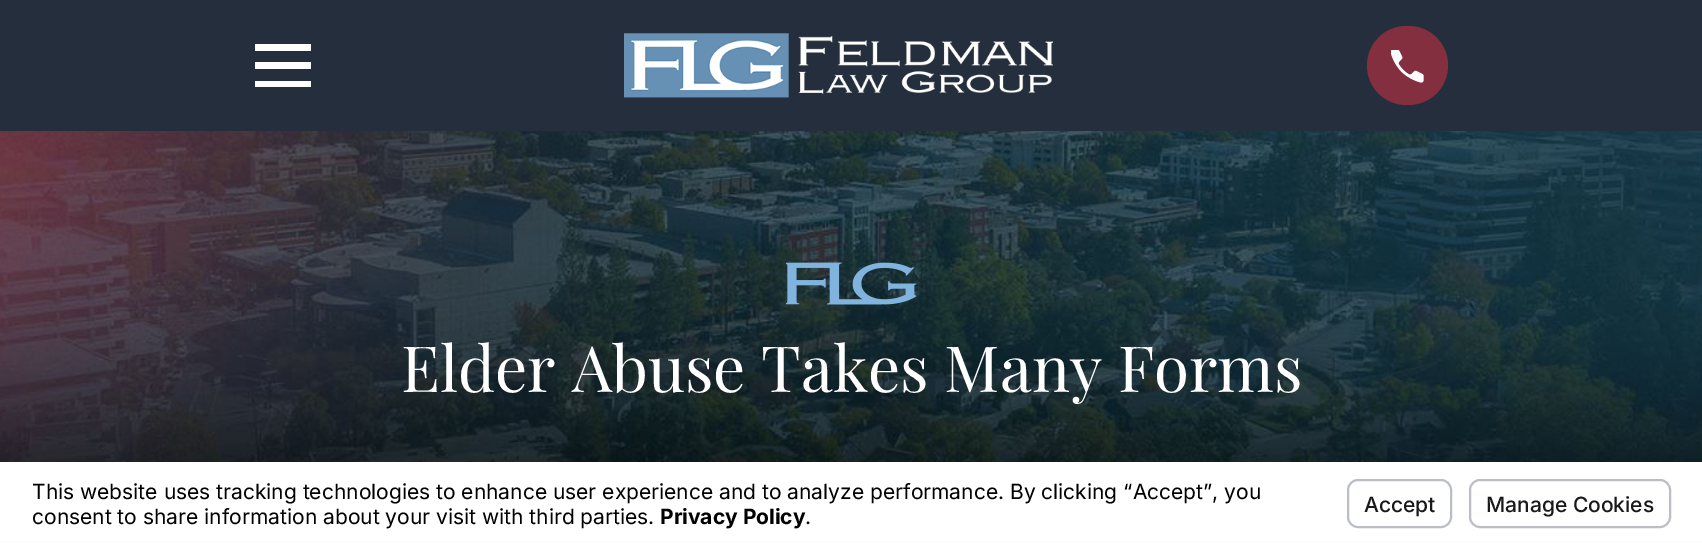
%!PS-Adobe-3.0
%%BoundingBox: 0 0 1702 544
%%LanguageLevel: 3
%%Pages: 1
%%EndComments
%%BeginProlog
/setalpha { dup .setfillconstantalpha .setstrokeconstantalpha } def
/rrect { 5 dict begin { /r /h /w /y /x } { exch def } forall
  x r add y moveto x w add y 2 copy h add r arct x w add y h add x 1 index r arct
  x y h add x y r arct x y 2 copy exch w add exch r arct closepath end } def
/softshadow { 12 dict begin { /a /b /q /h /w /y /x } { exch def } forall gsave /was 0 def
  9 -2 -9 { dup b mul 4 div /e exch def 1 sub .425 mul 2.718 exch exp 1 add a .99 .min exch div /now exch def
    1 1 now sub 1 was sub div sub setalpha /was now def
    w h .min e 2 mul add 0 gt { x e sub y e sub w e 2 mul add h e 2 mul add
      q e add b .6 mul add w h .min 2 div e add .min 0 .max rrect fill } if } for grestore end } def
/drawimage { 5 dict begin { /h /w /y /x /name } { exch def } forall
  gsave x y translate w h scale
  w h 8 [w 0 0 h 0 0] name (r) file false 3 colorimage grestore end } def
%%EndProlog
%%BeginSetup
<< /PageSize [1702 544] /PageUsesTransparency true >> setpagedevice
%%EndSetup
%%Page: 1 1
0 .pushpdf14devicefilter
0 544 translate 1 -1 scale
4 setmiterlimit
1 setgray
0 0 1702 544 rectfill
0.141 0.18 0.239 setrgbcolor
0 0 1702 131 rectfill
1 setgray
newpath 255 44 moveto 255 51 lineto 311 51 lineto 311 44 lineto closepath 255 62 moveto 255 69 lineto 311 69 lineto 311 62 lineto closepath 255 81 moveto 255 87 lineto 311 87 lineto 311 81 lineto closepath fill
(images/1.raw) 624 33 429 65 drawimage
0.518 0.184 0.247 setrgbcolor
1367 26 81 79 39.5 rrect fill
(images/2.raw) 1391 50 33 33 drawimage
(images/3.raw) 0 131 1702 331 drawimage
(images/4.raw) 786 262 131 43 drawimage
0 setgray
0 456 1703 83 0 2 0.05 softshadow
1 setgray
0 462 1702 79 rectfill
0.737 0.745 0.78 setrgbcolor
2 setlinewidth
1348 480 103 47 10 rrect stroke
1470 480 200 47 10 rrect stroke
/PlayfairDisplay-Regular [63.75 0 0 -63.75 0 0] selectfont
1 setgray
401 392 moveto (Elder Abuse Takes Many Forms) show
/Inter-Regular [21 0 0 -21 0 0] selectfont
0 setgray
32 499 moveto (This website uses tracking technologies to enhance user experience and to analyze performance. By clicking “Accept”, you) show
32 524 moveto (consent to share information about your visit with third parties.) show
/Inter-Bold [21 0 0 -21 0 0] selectfont
660 524 moveto (Privacy Policy) show
/Inter-Regular [21 0 0 -21 0 0] selectfont
805 524 moveto (.) show
/Inter-Medium [21 0 0 -21 0 0] selectfont
0.098 setgray
1364 512 moveto (Accept) show
1486 512 moveto (Manage Cookies) show
.poppdf14devicefilter showpage
%%EOF
